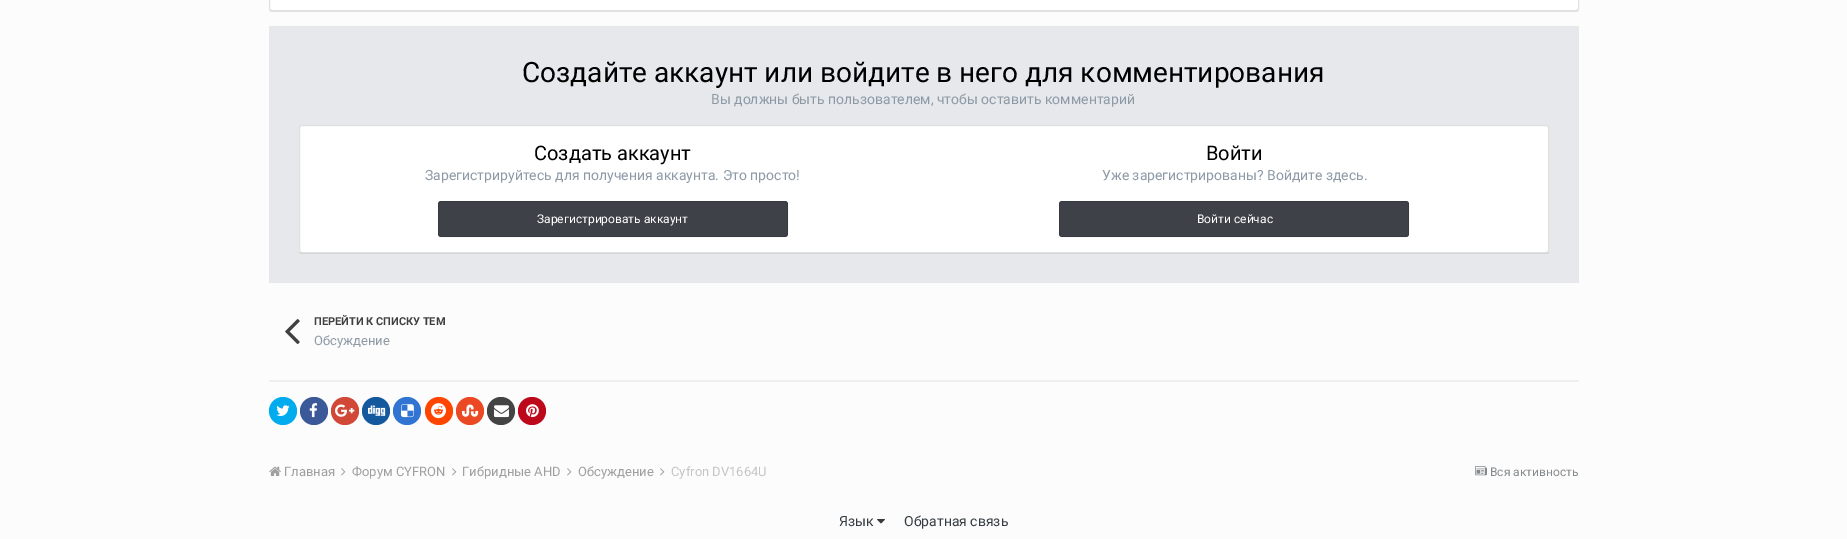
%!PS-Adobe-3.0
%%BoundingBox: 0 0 1847 539
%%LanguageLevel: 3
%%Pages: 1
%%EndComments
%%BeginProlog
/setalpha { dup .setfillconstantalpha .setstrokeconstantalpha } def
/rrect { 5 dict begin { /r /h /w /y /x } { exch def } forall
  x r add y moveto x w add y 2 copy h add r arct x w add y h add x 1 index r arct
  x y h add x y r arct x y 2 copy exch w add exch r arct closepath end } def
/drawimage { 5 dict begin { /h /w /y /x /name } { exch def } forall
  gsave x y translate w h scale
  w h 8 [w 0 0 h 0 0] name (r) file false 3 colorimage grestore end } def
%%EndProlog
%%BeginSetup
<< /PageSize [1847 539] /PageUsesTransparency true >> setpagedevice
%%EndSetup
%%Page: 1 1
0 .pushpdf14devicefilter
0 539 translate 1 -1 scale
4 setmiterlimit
0.988 setgray
0 0 1847 539 rectfill
0.89 setgray
newpath 269 8 moveto 269 9 lineto 269 11 270 12 272 12 curveto 1576 12 lineto 1578 12 1579 11 1579 9 curveto 1579 8 lineto 1579 10 1578 11 1576 11 curveto 272 11 lineto 270 11 269 10 269 8 curveto closepath fill
1 setgray
269.5 -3.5 1309 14 2.5 rrect gsave fill grestore
0.878 setgray
stroke
0.902 0.91 0.922 setrgbcolor
269 26 1310 257 rectfill
0.812 0.82 0.831 setrgbcolor
newpath 299 250 moveto 299 251 lineto 299 253 300 254 302 254 curveto 1546 254 lineto 1548 254 1549 253 1549 251 curveto 1549 250 lineto 1549 252 1548 253 1546 253 curveto 302 253 lineto 300 253 299 252 299 250 curveto closepath fill
1 setgray
299.5 125.5 1249 127 2.5 rrect gsave fill grestore
0.878 setgray
stroke
0.243 0.255 0.282 setrgbcolor
438 201 350 36 3 rrect fill
0.1 setalpha
0 setgray
438.5 201.5 349 35 2.5 rrect stroke
1 setalpha
0.243 0.255 0.282 setrgbcolor
1059 201 350 36 3 rrect fill
0.1 setalpha
0 setgray
1059.5 201.5 349 35 2.5 rrect stroke
1 setalpha
(images/1.raw) 285 319 15 25 drawimage
0.937 setgray
269 380 1310 2 rectfill
0 0.675 0.929 setrgbcolor
newpath 283 411 14 0 360 arc closepath fill
(images/2.raw) 276 405 14 11 drawimage
0.231 0.349 0.596 setrgbcolor
newpath 314 411 14 0 360 arc closepath fill
(images/3.raw) 309 403 9 15 drawimage
0.82 0.282 0.212 setrgbcolor
newpath 345 411 14 0 360 arc closepath fill
(images/4.raw) 335 404 20 13 drawimage
0.078 0.345 0.62 setrgbcolor
newpath 376 411 14 0 360 arc closepath fill
(images/5.raw) 368 405 18 11 drawimage
0.196 0.455 0.82 setrgbcolor
newpath 407 411 14 0 360 arc closepath fill
(images/6.raw) 401 404 13 14 drawimage
1 0.271 0 setrgbcolor
newpath 439 411 14 0 360 arc closepath fill
(images/7.raw) 431 403 15 16 drawimage
0.922 0.286 0.141 setrgbcolor
newpath 470 411 14 0 360 arc closepath fill
(images/8.raw) 462 404 17 13 drawimage
0.267 setgray
newpath 501 411 14 0 360 arc closepath fill
(images/9.raw) 494 405 15 13 drawimage
0.741 0.031 0.11 setrgbcolor
newpath 532 411 14 0 360 arc closepath fill
(images/10.raw) 526 404 13 14 drawimage
(images/11.raw) 269 466 12 10 drawimage
(images/12.raw) 341 468 5 8 drawimage
(images/12.raw) 452 468 5 8 drawimage
(images/12.raw) 567 468 5 8 drawimage
(images/12.raw) 660 468 5 8 drawimage
(images/13.raw) 1475 466 12 10 drawimage
(images/14.raw) 877 519 8 5 drawimage
/Roboto-Regular [28 0 0 -28 0 0] selectfont
0 setgray
522 82 moveto (Создайте аккаунт или войдите в него для комментирования) show
/Roboto-Regular [14 0 0 -14 0 0] selectfont
0.553 0.604 0.651 setrgbcolor
711 104 moveto (Вы должны быть пользователем, чтобы оставить комментарий) show
/Roboto-Regular [20 0 0 -20 0 0] selectfont
0 setgray
534 160 moveto (Создать аккаунт) show
/Roboto-Regular [14 0 0 -14 0 0] selectfont
0.553 0.604 0.651 setrgbcolor
425 180 moveto (Зарегистрируйтесь для получения аккаунта. Это просто!) show
/Roboto-Regular [12 0 0 -12 0 0] selectfont
1 setgray
537 223 moveto (Зарегистрировать аккаунт) show
/Roboto-Regular [20 0 0 -20 0 0] selectfont
0 setgray
1206 160 moveto (Войти) show
/Roboto-Regular [14 0 0 -14 0 0] selectfont
0.553 0.604 0.651 setrgbcolor
1102 180 moveto (Уже зарегистрированы? Войдите здесь.) show
/Roboto-Regular [12 0 0 -12 0 0] selectfont
1 setgray
1197 223 moveto (Войти сейчас) show
/Roboto-Bold [11 0 0 -11 0 0] selectfont
0.251 setgray
314 325 moveto (ПЕРЕЙТИ К СПИСКУ ТЕМ) show
/Roboto-Regular [13 0 0 -13 0 0] selectfont
0.553 0.604 0.651 setrgbcolor
314 345 moveto (Обсуждение) show
0.624 setgray
284 476 moveto (Главная) show
352 476 moveto (Форум CYFRON) show
462 476 moveto (Гибридные AHD) show
578 476 moveto (Обсуждение) show
0.769 setgray
671 476 moveto (Cyfron DV1664U) show
/Roboto-Regular [12 0 0 -12 0 0] selectfont
0.522 0.537 0.549 setrgbcolor
1490 476 moveto (Вся активность) show
/Roboto-Regular [14 0 0 -14 0 0] selectfont
0.208 0.235 0.255 setrgbcolor
839 526 moveto (Язык) show
904 526 moveto (Обратная связь) show
.poppdf14devicefilter showpage
%%EOF
